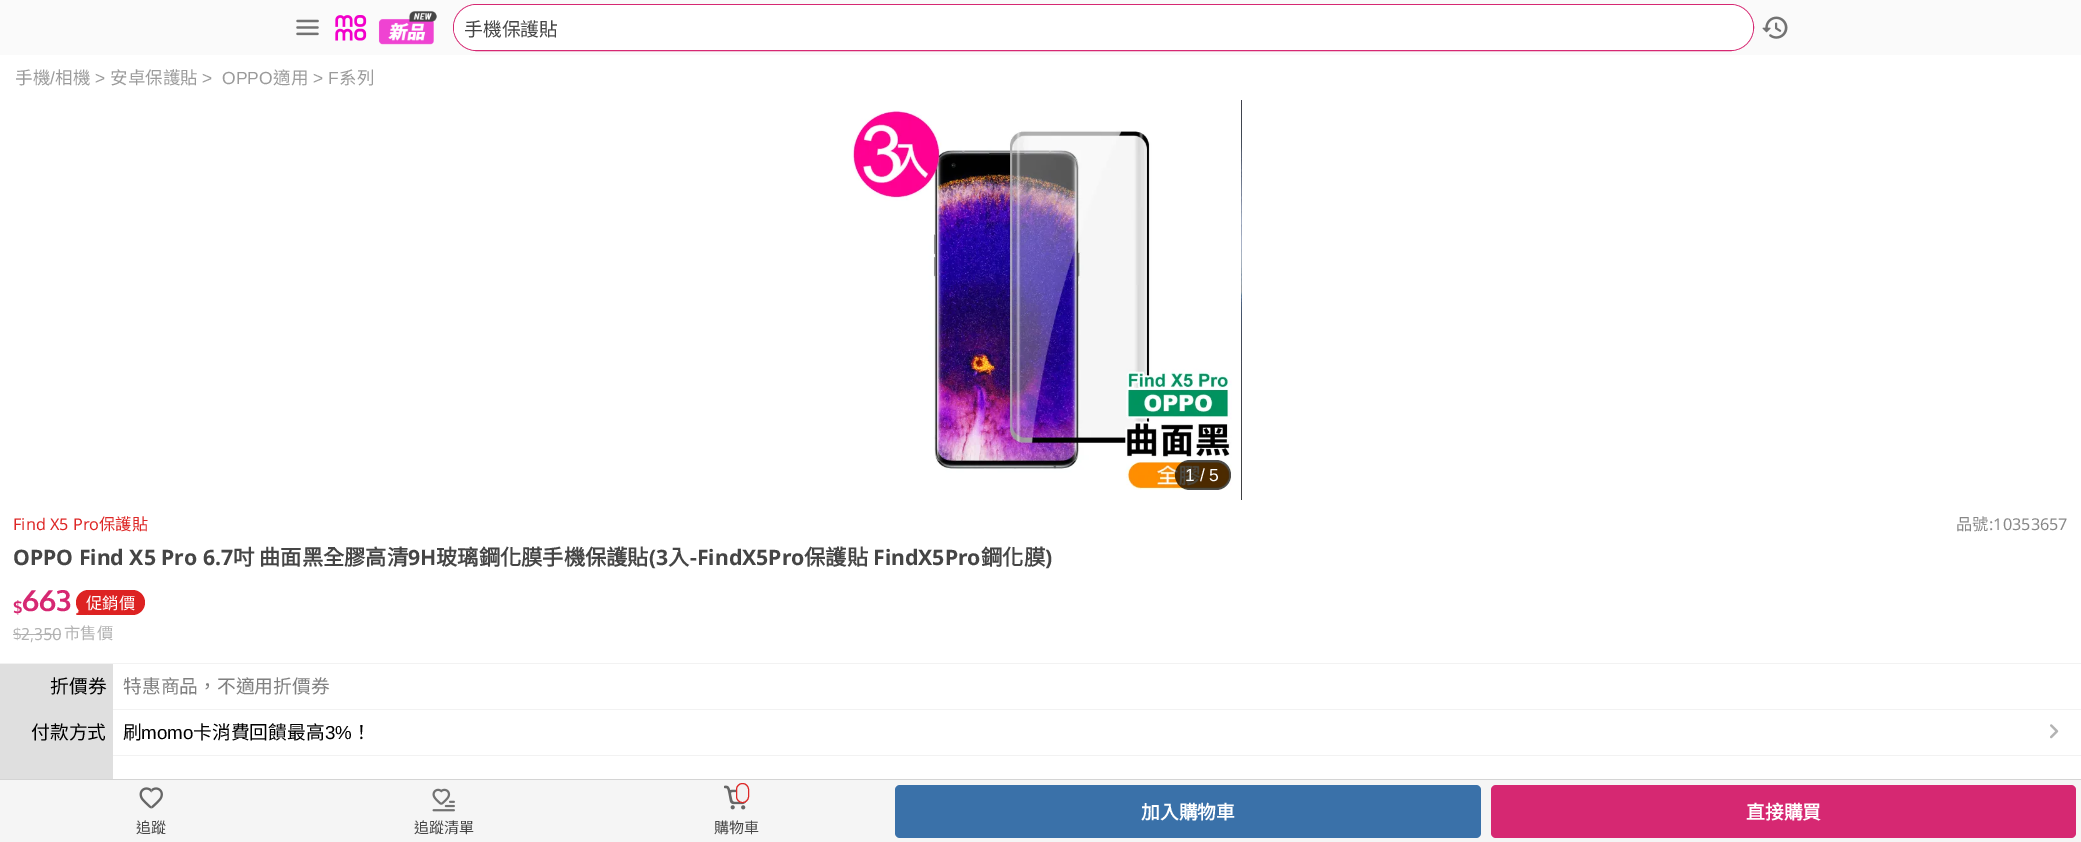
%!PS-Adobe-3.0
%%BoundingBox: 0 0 2081 842
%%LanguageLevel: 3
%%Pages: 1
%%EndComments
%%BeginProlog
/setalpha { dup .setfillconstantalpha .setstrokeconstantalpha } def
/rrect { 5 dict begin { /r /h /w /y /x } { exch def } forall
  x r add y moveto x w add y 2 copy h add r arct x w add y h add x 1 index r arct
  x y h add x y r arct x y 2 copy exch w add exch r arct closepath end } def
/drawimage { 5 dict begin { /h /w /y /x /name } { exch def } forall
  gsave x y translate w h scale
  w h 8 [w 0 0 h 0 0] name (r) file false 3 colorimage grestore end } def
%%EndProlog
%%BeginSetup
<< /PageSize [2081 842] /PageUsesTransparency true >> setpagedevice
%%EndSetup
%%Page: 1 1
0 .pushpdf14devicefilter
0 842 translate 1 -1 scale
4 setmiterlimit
1 setgray
0 0 2081 842 rectfill
0.98 setgray
0 0 2081 55 rectfill
(images/1.raw) 296 19 23 17 drawimage
(images/2.raw) 335 15 32 26 drawimage
(images/3.raw) 378 10 59 35 drawimage
0.839 0.157 0.447 setrgbcolor
453.5 4.5 1300 46 23 rrect stroke
1 setgray
454 5 1299 45 22.5 rrect fill
454 16 1294 25 12.5 rrect fill
(images/4.raw) 1762 16 26 23 drawimage
(images/5.raw) 851 110 381 380 drawimage
(images/6.raw) 1241 100 1 400 drawimage
0.7 setalpha
0 setgray
1175 460 56 30 15 rrect fill
1 setalpha
0.867 0.133 0.133 setrgbcolor
76 590 69 25 12.5 rrect fill
0.702 setgray
13 634 8 1 rectfill
21 634 40 1 rectfill
0.949 setgray
0 663 2081 1 rectfill
0.875 setgray
0 664 113 115 rectfill
0.949 setgray
113 709 1968 1 rectfill
113 755 1968 1 rectfill
(images/8.raw) 2050 724 9 15 drawimage
0.961 setgray
0 780 2081 62 rectfill
0.831 setgray
0 779 2081 1 rectfill
0.227 0.443 0.663 setrgbcolor
895 785 586 53 5 rrect fill
0.839 0.157 0.447 setrgbcolor
1491 785 585 53 5 rrect fill
(images/9.raw) 139 787 24 22 drawimage
(images/10.raw) 432 788 23 24 drawimage
(images/11.raw) 724 785 23 25 drawimage
0.949 setgray
736.5 783.5 12 19 6 rrect gsave fill grestore
0.867 0.153 0.149 setrgbcolor
stroke
/NotoSansCJKTC-Regular [18.75 0 0 -18.75 0 0] selectfont
0.271 setgray
464 36 moveto (手機保護貼) show
/NotoSansCJKTC-Regular [17.5 0 0 -17.5 0 0] selectfont
0.608 setgray
15 84 moveto (手機) show
/LiberationSans-Regular [17.5 0 0 -17.5 0 0] selectfont
50 84 moveto (/) show
/NotoSansCJKTC-Regular [17.5 0 0 -17.5 0 0] selectfont
55 84 moveto (相機) show
/LiberationSans-Regular [17.5 0 0 -17.5 0 0] selectfont
95 84 moveto (>) show
/NotoSansCJKTC-Regular [17.5 0 0 -17.5 0 0] selectfont
110 84 moveto (安卓保護貼) show
/LiberationSans-Regular [17.5 0 0 -17.5 0 0] selectfont
202 84 moveto (>) show
222 84 moveto (OPPO) show
/NotoSansCJKTC-Regular [17.5 0 0 -17.5 0 0] selectfont
273 84 moveto (適用) show
/LiberationSans-Regular [17.5 0 0 -17.5 0 0] selectfont
313 84 moveto (> F) show
/NotoSansCJKTC-Regular [17.5 0 0 -17.5 0 0] selectfont
339 84 moveto (系列) show
/LiberationSans-Regular [17.5 0 0 -17.5 0 0] selectfont
1 setgray
1185 481 moveto (1 / 5) show
/NotoSans-Regular [16.25 0 0 -16.25 0 0] selectfont
0.867 0.153 0.149 setrgbcolor
13 530 moveto (Find X5 Pro) show
/NotoSansCJKTC-Regular [16.25 0 0 -16.25 0 0] selectfont
99 530 moveto (保護貼) show
0.533 setgray
1956 530 moveto (品號) show
/NotoSans-Regular [16.25 0 0 -16.25 0 0] selectfont
1989 530 moveto (:10353657) show
/NotoSans-Bold [21.25 0 0 -21.25 0 0] selectfont
0.271 setgray
13 565 moveto (OPPO Find X5 Pro 6.7) show
/NotoSansCJKTC-Bold [21.25 0 0 -21.25 0 0] selectfont
233 565 moveto (吋) show
259 565 moveto (曲面黑全膠高清) show
/NotoSans-Bold [21.25 0 0 -21.25 0 0] selectfont
408 565 moveto (9H) show
/NotoSansCJKTC-Bold [21.25 0 0 -21.25 0 0] selectfont
436 565 moveto (玻璃鋼化膜手機保護貼) show
/NotoSans-Bold [21.25 0 0 -21.25 0 0] selectfont
649 565 moveto (\(3) show
/NotoSansCJKTC-Bold [21.25 0 0 -21.25 0 0] selectfont
668 565 moveto (入) show
/NotoSans-Bold [21.25 0 0 -21.25 0 0] selectfont
690 565 moveto (-FindX5Pro) show
/NotoSansCJKTC-Bold [21.25 0 0 -21.25 0 0] selectfont
804 565 moveto (保護貼) show
/NotoSans-Bold [21.25 0 0 -21.25 0 0] selectfont
873 565 moveto (FindX5Pro) show
/NotoSansCJKTC-Bold [21.25 0 0 -21.25 0 0] selectfont
981 565 moveto (鋼化膜) show
/NotoSans-Bold [21.25 0 0 -21.25 0 0] selectfont
1045 565 moveto (\)) show
/Oxygen-Bold [16.25 0 0 -16.25 0 0] selectfont
0.839 0.157 0.447 setrgbcolor
13 613 moveto ($) show
/Oxygen-Bold [29 0 0 -29 0 0] selectfont
22 611 moveto (663) show
/NotoSansCJKTC-Regular [16.25 0 0 -16.25 0 0] selectfont
1 setgray
86 609 moveto (促銷價) show
(images/7.raw) 76 610 12 5 drawimage
/Oxygen-Regular [14 0 0 -14 0 0] selectfont
0.702 setgray
13 639 moveto ($) show
/Oxygen-Regular [16.25 0 0 -16.25 0 0] selectfont
21 640 moveto (2,350) show
/NotoSansCJKTC-Regular [16.25 0 0 -16.25 0 0] selectfont
64 639 moveto (市售價) show
/NotoSansCJKTC-Regular [18.75 0 0 -18.75 0 0] selectfont
0 setgray
50 693 moveto (折價券) show
0.502 setgray
123 693 moveto (特惠商品，不適用折價券) show
0 setgray
31 739 moveto (付款方式) show
123 739 moveto (刷) show
/LiberationSans-Regular [18.75 0 0 -18.75 0 0] selectfont
141 739 moveto (momo) show
/NotoSansCJKTC-Regular [18.75 0 0 -18.75 0 0] selectfont
193 739 moveto (卡消費回饋最高) show
/LiberationSans-Regular [18.75 0 0 -18.75 0 0] selectfont
325 739 moveto (3%) show
/NotoSansCJKTC-Regular [18.75 0 0 -18.75 0 0] selectfont
352 739 moveto (！) show
/NotoSansCJKTC-Bold [18.75 0 0 -18.75 0 0] selectfont
1 setgray
1141 819 moveto (加入購物車) show
1746 819 moveto (直接購買) show
/NotoSansCJKTC-Regular [15 0 0 -15 0 0] selectfont
0.271 setgray
136 833 moveto (追蹤) show
414 833 moveto (追蹤清單) show
714 833 moveto (購物車) show
.poppdf14devicefilter showpage
%%EOF
